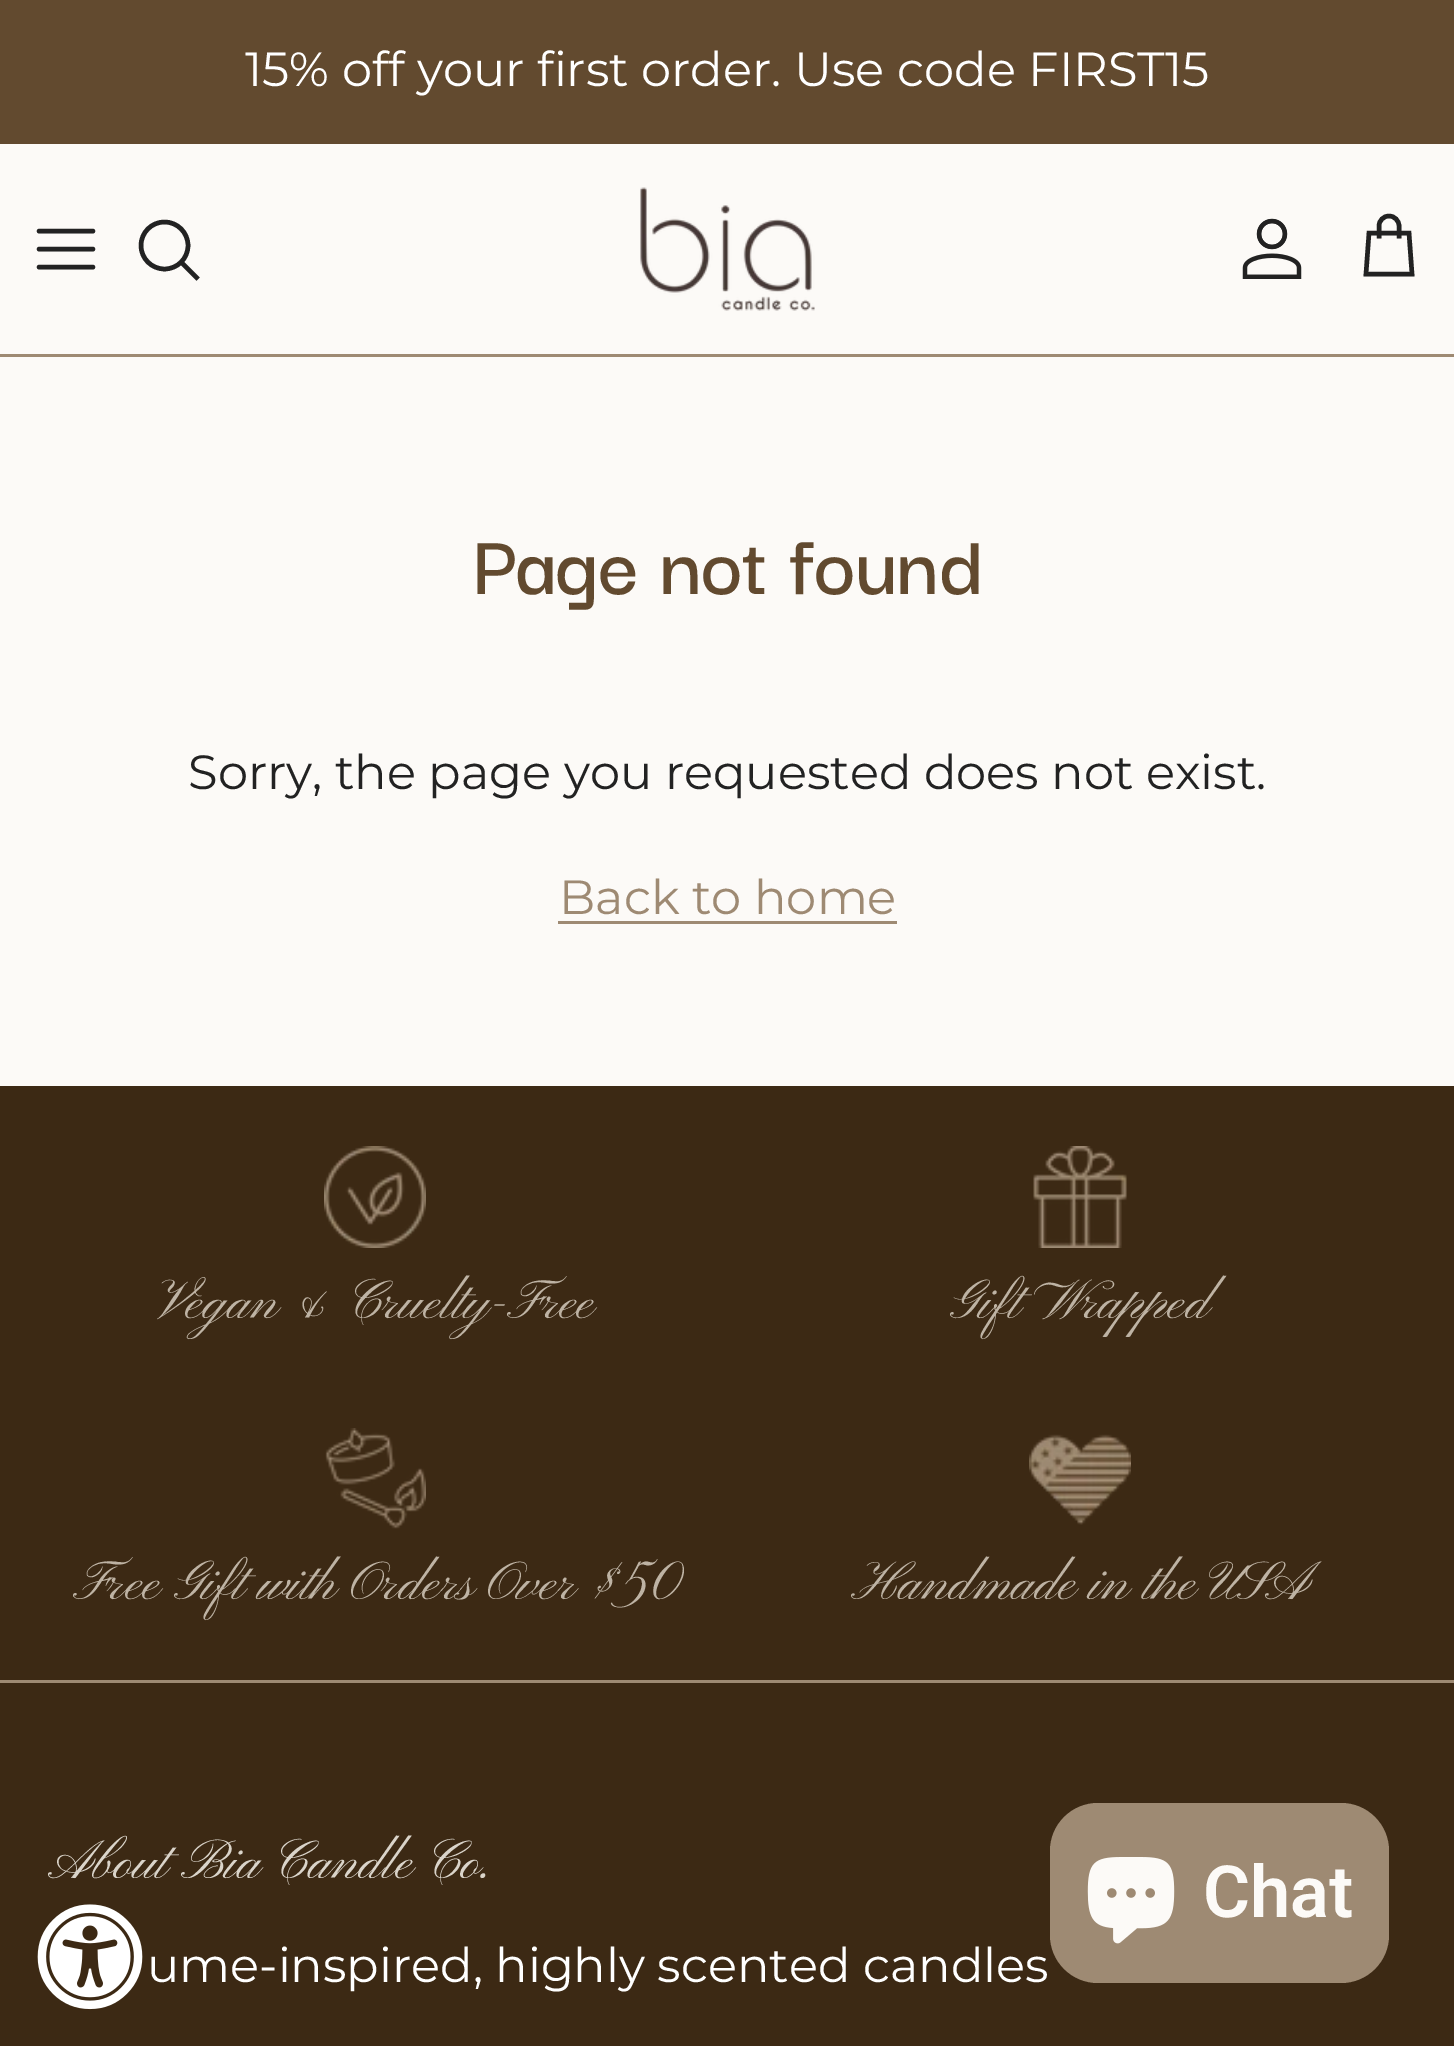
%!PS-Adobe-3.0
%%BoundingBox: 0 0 1454 2046
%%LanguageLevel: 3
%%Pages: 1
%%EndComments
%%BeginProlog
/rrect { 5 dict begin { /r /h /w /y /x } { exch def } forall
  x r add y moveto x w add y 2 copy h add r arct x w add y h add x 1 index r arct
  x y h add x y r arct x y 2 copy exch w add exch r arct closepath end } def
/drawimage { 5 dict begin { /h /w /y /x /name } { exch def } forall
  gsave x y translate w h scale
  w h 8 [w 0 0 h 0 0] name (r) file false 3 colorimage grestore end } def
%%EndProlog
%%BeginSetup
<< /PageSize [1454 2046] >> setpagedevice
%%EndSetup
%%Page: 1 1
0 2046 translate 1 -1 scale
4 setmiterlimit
0.988 0.98 0.969 setrgbcolor
0 0 1454 2046 rectfill
0.384 0.29 0.184 setrgbcolor
0 0 1454 144 rectfill
0.62 0.541 0.451 setrgbcolor
0 354 1454 3 rectfill
0.133 setgray
4.5 setlinewidth
1 setlinecap
1 setlinejoin
newpath 39 249 moveto 93 249 lineto 39 231 moveto 93 231 lineto 39 267 moveto 93 267 lineto stroke
0 setlinecap
0 setlinejoin
newpath 164.5 245.5 23.5 0 360 arc closepath stroke
2 setlinecap
newpath 183 264 moveto 196.5 277.5 lineto stroke
(images/1.raw) 640 187 175 124 drawimage
(images/2.raw) 1242 218 60 61 drawimage
0 setlinecap
newpath 1399 238.5 moveto 1399 226 lineto 1399 220.5 1394.5 216 1389 216 curveto 1383.5 216 1379 220.5 1379 226 curveto 1379 238.5 lineto stroke
newpath 1369 233 moveto 1409 233 lineto 1412 274 lineto 1366 274 lineto closepath stroke
0.62 0.541 0.451 setrgbcolor
558 921 339 3 rectfill
0.235 0.161 0.078 setrgbcolor
0 1086 1454 594 rectfill
(images/3.raw) 324 1146 102 102 drawimage
(images/4.raw) 1033 1146 94 102 drawimage
(images/5.raw) 325 1428 101 101 drawimage
(images/6.raw) 1029 1434 102 91 drawimage
0 1683 1454 363 rectfill
0.62 0.541 0.451 setrgbcolor
0 1680 1454 3 rectfill
1050 1803 339 180 48 rrect fill
(images/7.raw) 1087 1857 88 87 drawimage
(images/8.raw) 37 1904 106 106 drawimage
/Montserrat-Regular [48 0 0 -48 0 0] selectfont
1 setgray
245 86 moveto (15% off your first order. Use code FIRST15) show
/DarkerGrotesque-SemiBold [90 0 0 -90 0 0] selectfont
0.384 0.29 0.184 setrgbcolor
472 594 moveto (Page not found) show
/Montserrat-Regular [48 0 0 -48 0 0] selectfont
0.133 setgray
188 789 moveto (Sorry, the page you requested does not exist.) show
0.62 0.541 0.451 setrgbcolor
559 914 moveto (Back to home) show
/PinyonScript-Regular [54.75 0 0 -54.75 0 0] selectfont
0.745 0.702 0.643 setrgbcolor
157 1318 moveto (Vegan & Cruelty-Free) show
950 1318 moveto (Gift Wrapped) show
73 1599 moveto (Free Gift with Orders Over $50) show
851 1599 moveto (Handmade in the USA) show
0.855 0.831 0.792 setrgbcolor
48 1878 moveto (About Bia Candle Co.) show
/Montserrat-Regular [48 0 0 -48 0 0] selectfont
1 setgray
147 1982 moveto (ume-inspired, highly scented candles) show
/Roboto-SemiBold [72 0 0 -72 0 0] selectfont
0.988 0.98 0.969 setrgbcolor
1203 1917 moveto (Chat) show
showpage
%%EOF
